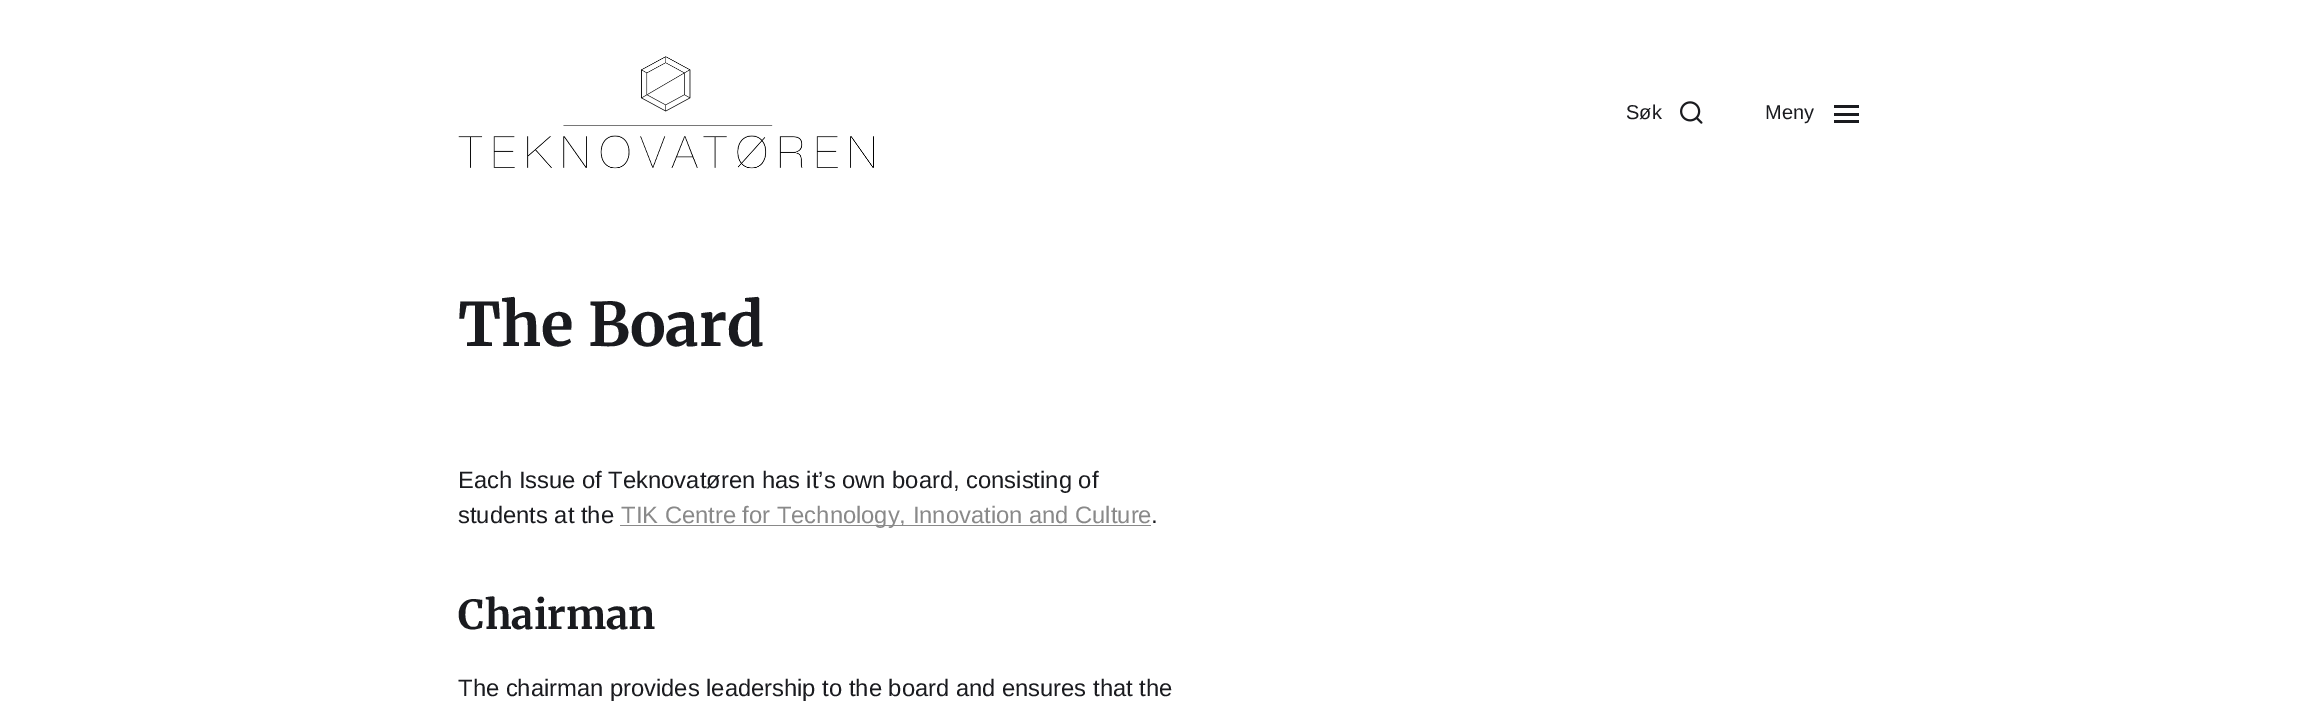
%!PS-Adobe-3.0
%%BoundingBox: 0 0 2316 727
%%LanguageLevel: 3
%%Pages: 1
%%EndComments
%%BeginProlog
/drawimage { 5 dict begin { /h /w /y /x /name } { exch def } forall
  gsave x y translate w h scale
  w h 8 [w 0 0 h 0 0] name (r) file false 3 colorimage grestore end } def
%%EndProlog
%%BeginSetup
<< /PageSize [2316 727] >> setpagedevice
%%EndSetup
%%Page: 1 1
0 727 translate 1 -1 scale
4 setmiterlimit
1 setgray
0 0 2316 727 rectfill
(images/1.raw) 458 56 416 113 drawimage
(images/2.raw) 1680 101 23 23 drawimage
0.102 0.106 0.122 setrgbcolor
1834 105 25 3 rectfill
1834 113 25 3 rectfill
1834 120 25 3 rectfill
0.537 setgray
620 525 531 1 rectfill
/LiberationSans-Regular [20 0 0 -20 0 0] selectfont
0.102 0.106 0.122 setrgbcolor
1626 119 moveto (Søk) show
1765 119 moveto (Meny) show
/Merriweather-Bold [60 0 0 -60 0 0] selectfont
458 346 moveto (The Board) show
/LiberationSans-Regular [23.75 0 0 -23.75 0 0] selectfont
458 488 moveto (Each Issue of Teknovatøren has it’s own board, consisting of) show
458 523 moveto (students at the) show
0.537 setgray
621 523 moveto (TIK Centre for Technology, Innovation and Culture) show
0.102 0.106 0.122 setrgbcolor
1151 523 moveto (.) show
/Merriweather-Bold [40 0 0 -40 0 0] selectfont
458 629 moveto (Chairman) show
/LiberationSans-Regular [23.75 0 0 -23.75 0 0] selectfont
458 696 moveto (The chairman provides leadership to the board and ensures that the) show
showpage
%%EOF
